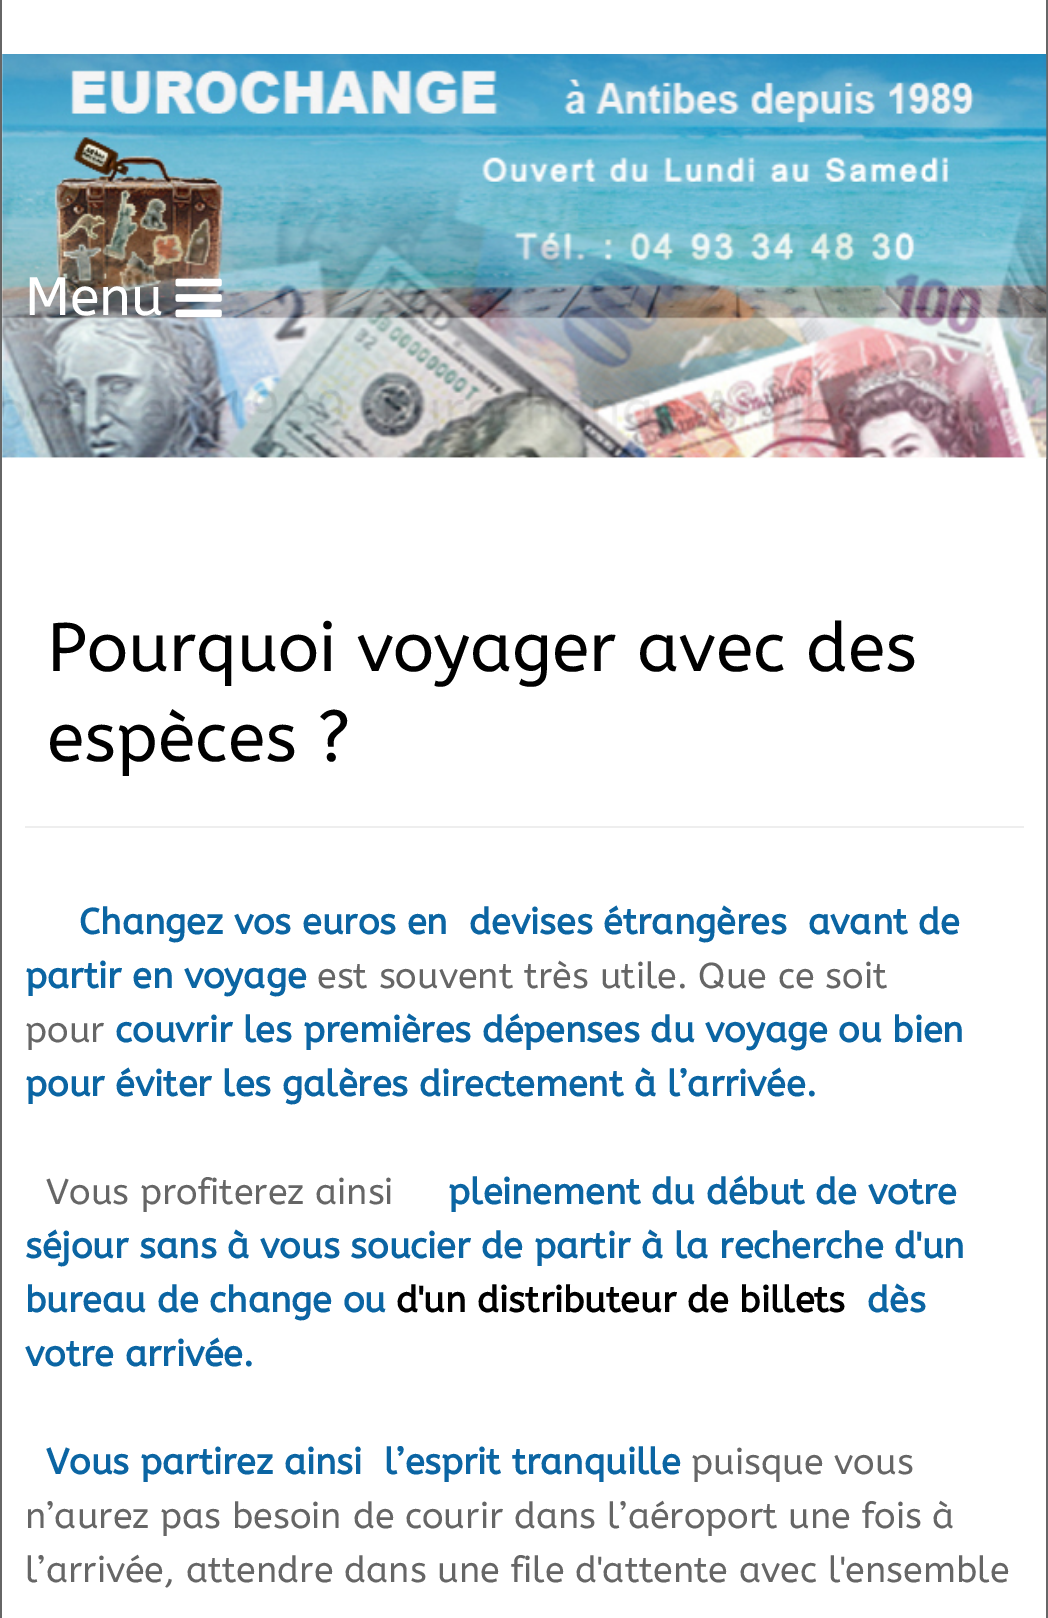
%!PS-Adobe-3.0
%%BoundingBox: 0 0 1048 1618
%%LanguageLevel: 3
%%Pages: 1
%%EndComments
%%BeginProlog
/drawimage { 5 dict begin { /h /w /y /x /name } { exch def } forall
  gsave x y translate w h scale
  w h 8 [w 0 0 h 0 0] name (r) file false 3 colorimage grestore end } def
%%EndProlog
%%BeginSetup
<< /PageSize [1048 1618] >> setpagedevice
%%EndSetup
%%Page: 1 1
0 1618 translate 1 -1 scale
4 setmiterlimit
1 setgray
0 0 1048 1618 rectfill
0.4 setgray
1046 0 2 1618 rectfill
(images/1.raw) 2 54 1045 405 drawimage
(images/2.raw) 175 278 47 40 drawimage
0 0 2 1618 rectfill
0.933 setgray
25 826 999 2 rectfill
/ABeeZee-Regular [54 0 0 -54 0 0] selectfont
1 setgray
25 315 moveto (Menu) show
/ABeeZee-Regular [68.4 0 0 -68.4 0 0] selectfont
0 setgray
47 671 moveto (Pourquoi voyager avec des) show
47 761 moveto (espèces ?) show
/ABeeZee-Bold [36 0 0 -36 0 0] selectfont
0.043 0.396 0.639 setrgbcolor
79 934 moveto (Changez vos euros en  devises étrangères  avant de) show
25 988 moveto (partir en voyage) show
/ABeeZee-Regular [36 0 0 -36 0 0] selectfont
0.4 setgray
317 988 moveto (est souvent très utile. Que ce soit) show
25 1042 moveto (pour) show
/ABeeZee-Bold [36 0 0 -36 0 0] selectfont
0.043 0.396 0.639 setrgbcolor
115 1042 moveto (couvrir les premières dépenses du voyage ou bien) show
25 1096 moveto (pour éviter les galères directement à l’arrivée.) show
/ABeeZee-Regular [36 0 0 -36 0 0] selectfont
0.4 setgray
46 1204 moveto (Vous profiterez ainsi) show
/ABeeZee-Bold [36 0 0 -36 0 0] selectfont
0.043 0.396 0.639 setrgbcolor
448 1204 moveto (pleinement du début de votre) show
25 1258 moveto (séjour sans à vous soucier de partir à la recherche d'un) show
25 1312 moveto (bureau de change ou) show
0 setgray
396 1312 moveto (d'un distributeur de billets) show
0.043 0.396 0.639 setrgbcolor
867 1312 moveto (dès) show
25 1366 moveto (votre arrivée.) show
46 1474 moveto (Vous partirez ainsi) show
384 1474 moveto (l’esprit tranquille) show
/ABeeZee-Regular [36 0 0 -36 0 0] selectfont
0.4 setgray
691 1474 moveto (puisque vous) show
25 1528 moveto (n’aurez pas besoin de courir dans l’aéroport une fois à) show
25 1582 moveto (l’arrivée, attendre dans une file d'attente avec l'ensemble) show
showpage
%%EOF
